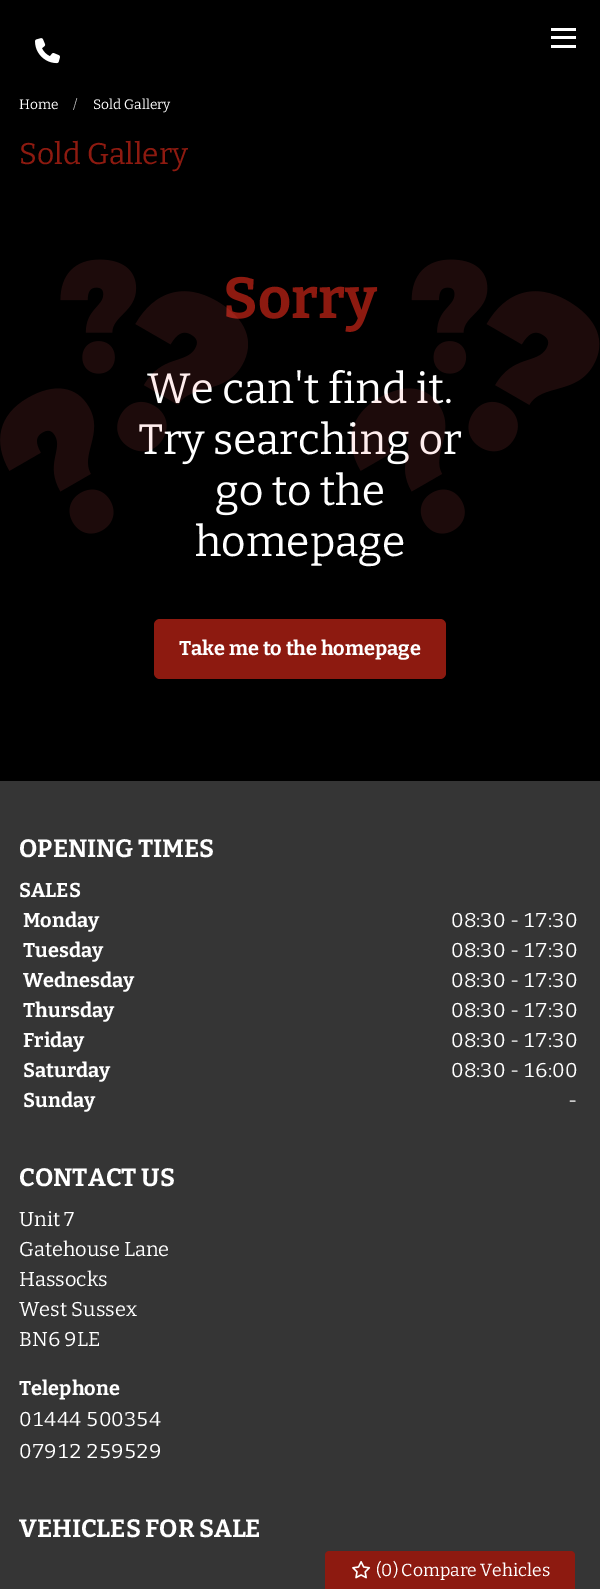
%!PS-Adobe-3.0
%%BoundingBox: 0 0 600 1589
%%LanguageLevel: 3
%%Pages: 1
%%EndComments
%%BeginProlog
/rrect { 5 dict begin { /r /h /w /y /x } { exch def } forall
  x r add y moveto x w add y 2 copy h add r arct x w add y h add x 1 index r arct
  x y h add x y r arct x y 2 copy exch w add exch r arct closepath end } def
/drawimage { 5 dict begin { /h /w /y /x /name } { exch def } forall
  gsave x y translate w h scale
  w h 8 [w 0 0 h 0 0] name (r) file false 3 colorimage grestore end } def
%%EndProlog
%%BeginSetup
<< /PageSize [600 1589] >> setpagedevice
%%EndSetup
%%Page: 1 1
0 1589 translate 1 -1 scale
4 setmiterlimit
0 setgray
0 0 600 1589 rectfill
(images/1.raw) 35 38 25 26 drawimage
1 setgray
551 45 25 3 rectfill
551 36 25 3 rectfill
551 28 25 3 rectfill
0.553 0.102 0.063 setrgbcolor
154 619 292 60 6 rrect fill
0.208 setgray
0 781 600 808 rectfill
0.553 0.102 0.063 setrgbcolor
newpath 329 1551 moveto 571 1551 lineto 573 1551 575 1553 575 1555 curveto 575 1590 lineto 325 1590 lineto 325 1555 lineto 325 1553 327 1551 329 1551 curveto closepath fill
(images/4.raw) 352 1561 19 18 drawimage
/Bitter-Regular [13.75 0 0 -13.75 0 0] selectfont
1 setgray
19 109 moveto (Home) show
0.792 setgray
73 109 moveto (/) show
1 setgray
93 109 moveto (Sold Gallery) show
/Bitter-Regular [30 0 0 -30 0 0] selectfont
0.553 0.102 0.063 setrgbcolor
19 164 moveto (Sold Gallery) show
/Bitter-Bold [57.5 0 0 -57.5 0 0] selectfont
223 318 moveto (Sorry) show
/Bitter-Regular [42.5 0 0 -42.5 0 0] selectfont
1 setgray
147 403 moveto (We can't find it.) show
138 454 moveto (Try searching or) show
215 505 moveto (go to the) show
195 556 moveto (homepage) show
(images/3.raw) 351 259 249 275 drawimage
(images/2.raw) 0 259 248 275 drawimage
/Bitter-Bold [20 0 0 -20 0 0] selectfont
179 655 moveto (Take me to the homepage) show
/Bitter-Regular [17.5 0 0 -17.5 0 0] selectfont
376 1576 moveto (\(0\) Compare Vehicles) show
/Bitter-Bold [25 0 0 -25 0 0] selectfont
19 857 moveto (OPENING TIMES) show
/Bitter-Bold [20 0 0 -20 0 0] selectfont
19 897 moveto (SALES) show
23 927 moveto (Monday) show
/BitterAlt-Regular [20 0 0 -20 0 0] selectfont
451 927 moveto (08:30 - 17:30) show
/Bitter-Bold [20 0 0 -20 0 0] selectfont
23 957 moveto (Tuesday) show
/BitterAlt-Regular [20 0 0 -20 0 0] selectfont
451 957 moveto (08:30 - 17:30) show
/Bitter-Bold [20 0 0 -20 0 0] selectfont
23 987 moveto (Wednesday) show
/BitterAlt-Regular [20 0 0 -20 0 0] selectfont
451 987 moveto (08:30 - 17:30) show
/Bitter-Bold [20 0 0 -20 0 0] selectfont
23 1017 moveto (Thursday) show
/BitterAlt-Regular [20 0 0 -20 0 0] selectfont
451 1017 moveto (08:30 - 17:30) show
/Bitter-Bold [20 0 0 -20 0 0] selectfont
23 1047 moveto (Friday) show
/BitterAlt-Regular [20 0 0 -20 0 0] selectfont
451 1047 moveto (08:30 - 17:30) show
/Bitter-Bold [20 0 0 -20 0 0] selectfont
23 1077 moveto (Saturday) show
/BitterAlt-Regular [20 0 0 -20 0 0] selectfont
451 1077 moveto (08:30 - 16:00) show
/Bitter-Bold [20 0 0 -20 0 0] selectfont
23 1107 moveto (Sunday) show
/Bitter-Regular [20 0 0 -20 0 0] selectfont
568 1107 moveto (-) show
/Bitter-Bold [25 0 0 -25 0 0] selectfont
19 1186 moveto (CONTACT US) show
/Bitter-Regular [20 0 0 -20 0 0] selectfont
19 1226 moveto (Unit 7) show
19 1256 moveto (Gatehouse Lane) show
19 1286 moveto (Hassocks) show
19 1316 moveto (West Sussex) show
/BitterAlt-Regular [20 0 0 -20 0 0] selectfont
19 1346 moveto (BN6 9LE) show
/Bitter-Bold [20 0 0 -20 0 0] selectfont
19 1395 moveto (Telephone) show
/BitterAlt-Regular [20 0 0 -20 0 0] selectfont
19 1426 moveto (01444 500354) show
19 1458 moveto (07912 259529) show
/Bitter-Bold [25 0 0 -25 0 0] selectfont
19 1537 moveto (VEHICLES FOR SALE) show
showpage
%%EOF
